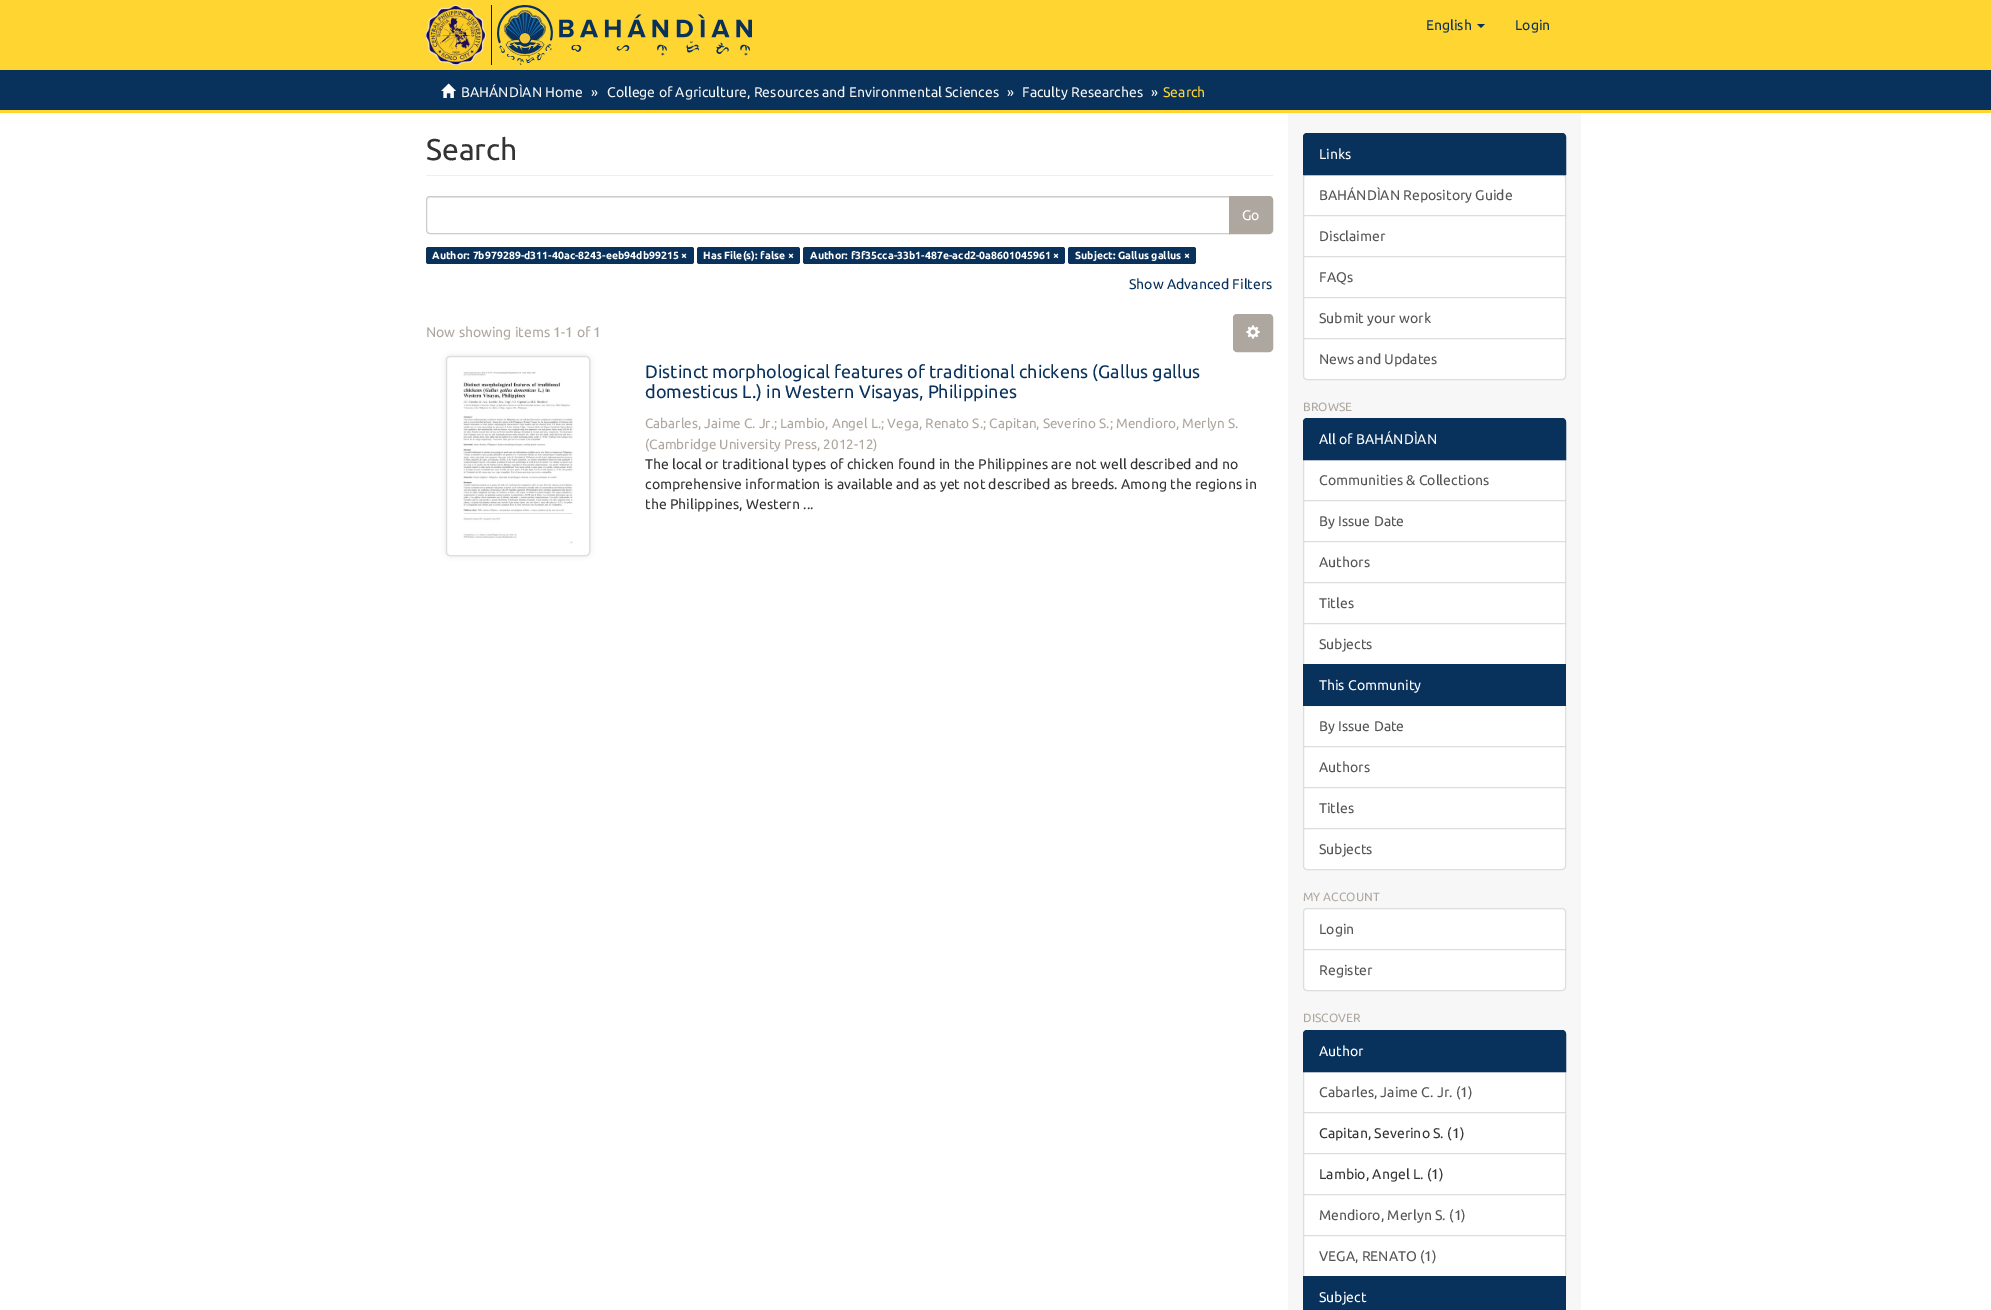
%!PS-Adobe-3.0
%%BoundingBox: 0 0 1991 1310
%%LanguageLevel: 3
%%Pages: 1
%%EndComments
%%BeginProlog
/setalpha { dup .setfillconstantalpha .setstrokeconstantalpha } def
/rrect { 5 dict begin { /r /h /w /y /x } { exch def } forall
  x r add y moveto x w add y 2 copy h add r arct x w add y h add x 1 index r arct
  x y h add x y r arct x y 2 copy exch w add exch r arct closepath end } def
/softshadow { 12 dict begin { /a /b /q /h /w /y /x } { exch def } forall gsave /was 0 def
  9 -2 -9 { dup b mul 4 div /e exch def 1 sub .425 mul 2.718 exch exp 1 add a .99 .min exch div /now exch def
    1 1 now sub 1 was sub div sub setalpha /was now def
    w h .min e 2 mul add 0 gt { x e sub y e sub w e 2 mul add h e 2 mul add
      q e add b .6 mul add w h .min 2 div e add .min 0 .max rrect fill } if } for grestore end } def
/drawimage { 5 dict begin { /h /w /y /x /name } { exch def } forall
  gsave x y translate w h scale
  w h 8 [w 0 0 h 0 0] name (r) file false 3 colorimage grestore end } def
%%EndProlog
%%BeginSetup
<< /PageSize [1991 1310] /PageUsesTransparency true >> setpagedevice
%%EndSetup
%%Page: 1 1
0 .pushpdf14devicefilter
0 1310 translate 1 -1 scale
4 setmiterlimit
1 setgray
0 0 1991 1310 rectfill
0.996 0.835 0.192 setrgbcolor
0 0 1991 70 rectfill
(images/1.raw) 426 5 60 60 drawimage
0 0.129 0.278 setrgbcolor
491 5 1 60 rectfill
(images/2.raw) 497 5 255 60 drawimage
0.031 0.192 0.361 setrgbcolor
newpath 1477 24 moveto 1485 24 lineto 1481 28 lineto closepath fill
0 70 1991 40 rectfill
0.996 0.835 0.192 setrgbcolor
0 110 1991 3 rectfill
(images/3.raw) 441 83 15 15 drawimage
0.969 setgray
1288 113 293 1197 rectfill
0.933 setgray
426 175 847 1 rectfill
0.925 setgray
newpath 430 198 moveto 1229 198 lineto 1229 197 lineto 430 197 lineto 428 197 427 199 427 201 curveto 427 199 428 198 430 198 curveto closepath fill
0.8 setgray
newpath 430 196.5 moveto 1229.5 196.5 lineto 1229.5 233.5 lineto 430 233.5 lineto 428 233.5 426.5 232 426.5 230 curveto 426.5 200 lineto 426.5 198 428 196.5 430 196.5 curveto closepath stroke
0.682 0.655 0.624 setrgbcolor
newpath 1229.5 196.5 moveto 1269 196.5 lineto 1271 196.5 1272.5 198 1272.5 200 curveto 1272.5 230 lineto 1272.5 232 1271 233.5 1269 233.5 curveto 1229.5 233.5 lineto closepath gsave fill grestore
stroke
0.031 0.192 0.361 setrgbcolor
426 247 268 17 2.5 rrect fill
697 247 103 17 2.5 rrect fill
803 247 262 17 2.5 rrect fill
1068 247 128 17 2.5 rrect fill
0.682 0.655 0.624 setrgbcolor
1233.5 314.5 39 37 3.5 rrect gsave fill grestore
stroke
(images/4.raw) 1246 325 14 14 drawimage
0 setgray
446 356 144 200 4 2.5 0.1 softshadow
1 setgray
446.5 356.5 143 199 3.5 rrect gsave fill grestore
0.867 setgray
stroke
(images/5.raw) 463 371 110 173 drawimage
1 setgray
newpath 1307 174.5 moveto 1562 174.5 lineto 1564 174.5 1565.5 176 1565.5 178 curveto 1565.5 215.5 lineto 1303.5 215.5 lineto 1303.5 178 lineto 1303.5 176 1305 174.5 1307 174.5 curveto closepath gsave fill grestore
0.867 setgray
stroke
0.031 0.192 0.361 setrgbcolor
newpath 1307 133.5 moveto 1562 133.5 lineto 1564 133.5 1565.5 135 1565.5 137 curveto 1565.5 174.5 lineto 1303.5 174.5 lineto 1303.5 137 lineto 1303.5 135 1305 133.5 1307 133.5 curveto closepath gsave fill grestore
stroke
1 setgray
newpath 1303.5 215.5 moveto 1565.5 215.5 lineto 1565.5 256.5 lineto 1303.5 256.5 lineto closepath gsave fill grestore
0.867 setgray
stroke
1 setgray
newpath 1303.5 256.5 moveto 1565.5 256.5 lineto 1565.5 297.5 lineto 1303.5 297.5 lineto closepath gsave fill grestore
0.867 setgray
stroke
1 setgray
newpath 1303.5 297.5 moveto 1565.5 297.5 lineto 1565.5 338.5 lineto 1303.5 338.5 lineto closepath gsave fill grestore
0.867 setgray
stroke
1 setgray
newpath 1303.5 338.5 moveto 1565.5 338.5 lineto 1565.5 376 lineto 1565.5 378 1564 379.5 1562 379.5 curveto 1307 379.5 lineto 1305 379.5 1303.5 378 1303.5 376 curveto closepath gsave fill grestore
0.867 setgray
stroke
1 setgray
newpath 1303.5 459.5 moveto 1565.5 459.5 lineto 1565.5 500.5 lineto 1303.5 500.5 lineto closepath gsave fill grestore
0.867 setgray
stroke
0.031 0.192 0.361 setrgbcolor
newpath 1307 418.5 moveto 1562 418.5 lineto 1564 418.5 1565.5 420 1565.5 422 curveto 1565.5 459.5 lineto 1303.5 459.5 lineto 1303.5 422 lineto 1303.5 420 1305 418.5 1307 418.5 curveto closepath gsave fill grestore
stroke
1 setgray
newpath 1303.5 500.5 moveto 1565.5 500.5 lineto 1565.5 541.5 lineto 1303.5 541.5 lineto closepath gsave fill grestore
0.867 setgray
stroke
1 setgray
newpath 1303.5 541.5 moveto 1565.5 541.5 lineto 1565.5 582.5 lineto 1303.5 582.5 lineto closepath gsave fill grestore
0.867 setgray
stroke
1 setgray
newpath 1303.5 582.5 moveto 1565.5 582.5 lineto 1565.5 623.5 lineto 1303.5 623.5 lineto closepath gsave fill grestore
0.867 setgray
stroke
1 setgray
newpath 1303.5 623.5 moveto 1565.5 623.5 lineto 1565.5 664.5 lineto 1303.5 664.5 lineto closepath gsave fill grestore
0.867 setgray
stroke
1 setgray
newpath 1303.5 705.5 moveto 1565.5 705.5 lineto 1565.5 746.5 lineto 1303.5 746.5 lineto closepath gsave fill grestore
0.867 setgray
stroke
0.031 0.192 0.361 setrgbcolor
1303 664 263 42 rectfill
1 setgray
newpath 1303.5 746.5 moveto 1565.5 746.5 lineto 1565.5 787.5 lineto 1303.5 787.5 lineto closepath gsave fill grestore
0.867 setgray
stroke
1 setgray
newpath 1303.5 787.5 moveto 1565.5 787.5 lineto 1565.5 828.5 lineto 1303.5 828.5 lineto closepath gsave fill grestore
0.867 setgray
stroke
1 setgray
newpath 1303.5 828.5 moveto 1565.5 828.5 lineto 1565.5 866 lineto 1565.5 868 1564 869.5 1562 869.5 curveto 1307 869.5 lineto 1305 869.5 1303.5 868 1303.5 866 curveto closepath gsave fill grestore
0.867 setgray
stroke
1 setgray
newpath 1307 908.5 moveto 1562 908.5 lineto 1564 908.5 1565.5 910 1565.5 912 curveto 1565.5 949.5 lineto 1303.5 949.5 lineto 1303.5 912 lineto 1303.5 910 1305 908.5 1307 908.5 curveto closepath gsave fill grestore
0.867 setgray
stroke
1 setgray
newpath 1303.5 949.5 moveto 1565.5 949.5 lineto 1565.5 987 lineto 1565.5 989 1564 990.5 1562 990.5 curveto 1307 990.5 lineto 1305 990.5 1303.5 989 1303.5 987 curveto closepath gsave fill grestore
0.867 setgray
stroke
1 setgray
newpath 1303.5 1071.5 moveto 1565.5 1071.5 lineto 1565.5 1112.5 lineto 1303.5 1112.5 lineto closepath gsave fill grestore
0.867 setgray
stroke
0.031 0.192 0.361 setrgbcolor
newpath 1307 1030.5 moveto 1562 1030.5 lineto 1564 1030.5 1565.5 1032 1565.5 1034 curveto 1565.5 1071.5 lineto 1303.5 1071.5 lineto 1303.5 1034 lineto 1303.5 1032 1305 1030.5 1307 1030.5 curveto closepath gsave fill grestore
stroke
1 setgray
newpath 1303.5 1112.5 moveto 1565.5 1112.5 lineto 1565.5 1153.5 lineto 1303.5 1153.5 lineto closepath gsave fill grestore
0.867 setgray
stroke
1 setgray
newpath 1303.5 1153.5 moveto 1565.5 1153.5 lineto 1565.5 1194.5 lineto 1303.5 1194.5 lineto closepath gsave fill grestore
0.867 setgray
stroke
1 setgray
newpath 1303.5 1194.5 moveto 1565.5 1194.5 lineto 1565.5 1235.5 lineto 1303.5 1235.5 lineto closepath gsave fill grestore
0.867 setgray
stroke
1 setgray
newpath 1303.5 1235.5 moveto 1565.5 1235.5 lineto 1565.5 1276.5 lineto 1303.5 1276.5 lineto closepath gsave fill grestore
0.867 setgray
stroke
0.031 0.192 0.361 setrgbcolor
1303 1276 263 34 rectfill
/Ubuntu-Regular [14 0 0 -14 0 0] selectfont
1426 30 moveto (English) show
1515 30 moveto (Login) show
0.961 setgray
461 97 moveto (BAHÁNDÌAN Home) show
591 97 moveto (») show
607 97 moveto (College of Agriculture, Resources and Environmental Sciences) show
1007 97 moveto (») show
1022 97 moveto (Faculty Researches) show
1151 97 moveto (») show
0.996 0.835 0.192 setrgbcolor
1163 97 moveto (Search) show
/Ubuntu-Regular [30 0 0 -30 0 0] selectfont
0.2 setgray
426 160 moveto (Search) show
/Ubuntu-Regular [14 0 0 -14 0 0] selectfont
1 setgray
1242 220 moveto (Go) show
/Ubuntu-Bold [10.5 0 0 -10.5 0 0] selectfont
432 259 moveto (Author: 7b979289-d311-40ac-8243-eeb94db99215 ×) show
703 259 moveto (Has File\(s\): false ×) show
810 259 moveto (Author: f3f35cca-33b1-487e-acd2-0a8601045961 ×) show
1075 259 moveto (Subject: Gallus gallus ×) show
/Ubuntu-Regular [14 0 0 -14 0 0] selectfont
0.031 0.192 0.361 setrgbcolor
1129 289 moveto (Show Advanced Filters) show
0.682 0.655 0.624 setrgbcolor
426 337 moveto (Now showing items 1-1 of 1) show
/Ubuntu-Regular [18 0 0 -18 0 0] selectfont
0.031 0.192 0.361 setrgbcolor
645 378 moveto (Distinct morphological features of traditional chickens \(Gallus gallus) show
645 398 moveto (domesticus L.\) in Western Visayas, Philippines) show
/Ubuntu-Regular [13.5 0 0 -13.5 0 0] selectfont
0.682 0.655 0.624 setrgbcolor
645 428 moveto (Cabarles, Jaime C. Jr.; Lambio, Angel L.; Vega, Renato S.; Capitan, Severino S.; Mendioro, Merlyn S.) show
645 449 moveto (\(Cambridge University Press, 2012-12\)) show
/Ubuntu-Regular [14 0 0 -14 0 0] selectfont
0.2 setgray
645 469 moveto (The local or traditional types of chicken found in the Philippines are not well described and no) show
645 489 moveto (comprehensive information is available and as yet not described as breeds. Among the regions in) show
645 509 moveto (the Philippines, Western ...) show
1 setgray
1319 159 moveto (Links) show
0.333 setgray
1319 200 moveto (BAHÁNDÌAN Repository Guide) show
1319 241 moveto (Disclaimer) show
1319 282 moveto (FAQs) show
1319 323 moveto (Submit your work) show
1319 364 moveto (News and Updates) show
/Ubuntu-Regular [12 0 0 -12 0 0] selectfont
0.682 0.655 0.624 setrgbcolor
1303 411 moveto (BROWSE) show
/Ubuntu-Regular [14 0 0 -14 0 0] selectfont
1 setgray
1319 444 moveto (All of BAHÁNDÌAN) show
0.333 setgray
1319 485 moveto (Communities & Collections) show
1319 526 moveto (By Issue Date) show
1319 567 moveto (Authors) show
1319 608 moveto (Titles) show
1319 649 moveto (Subjects) show
1 setgray
1319 690 moveto (This Community) show
0.333 setgray
1319 731 moveto (By Issue Date) show
1319 772 moveto (Authors) show
1319 813 moveto (Titles) show
1319 854 moveto (Subjects) show
/Ubuntu-Regular [12 0 0 -12 0 0] selectfont
0.682 0.655 0.624 setrgbcolor
1303 901 moveto (MY ACCOUNT) show
/Ubuntu-Regular [14 0 0 -14 0 0] selectfont
0.333 setgray
1319 934 moveto (Login) show
1319 975 moveto (Register) show
/Ubuntu-Regular [12 0 0 -12 0 0] selectfont
0.682 0.655 0.624 setrgbcolor
1303 1022 moveto (DISCOVER) show
/Ubuntu-Regular [14 0 0 -14 0 0] selectfont
1 setgray
1319 1056 moveto (Author) show
0.333 setgray
1319 1097 moveto (Cabarles, Jaime C. Jr. \(1\)) show
0.2 setgray
1319 1138 moveto (Capitan, Severino S. \(1\)) show
1319 1179 moveto (Lambio, Angel L. \(1\)) show
0.333 setgray
1319 1220 moveto (Mendioro, Merlyn S. \(1\)) show
1319 1261 moveto (VEGA, RENATO \(1\)) show
1 setgray
1319 1302 moveto (Subject) show
.poppdf14devicefilter showpage
%%EOF
